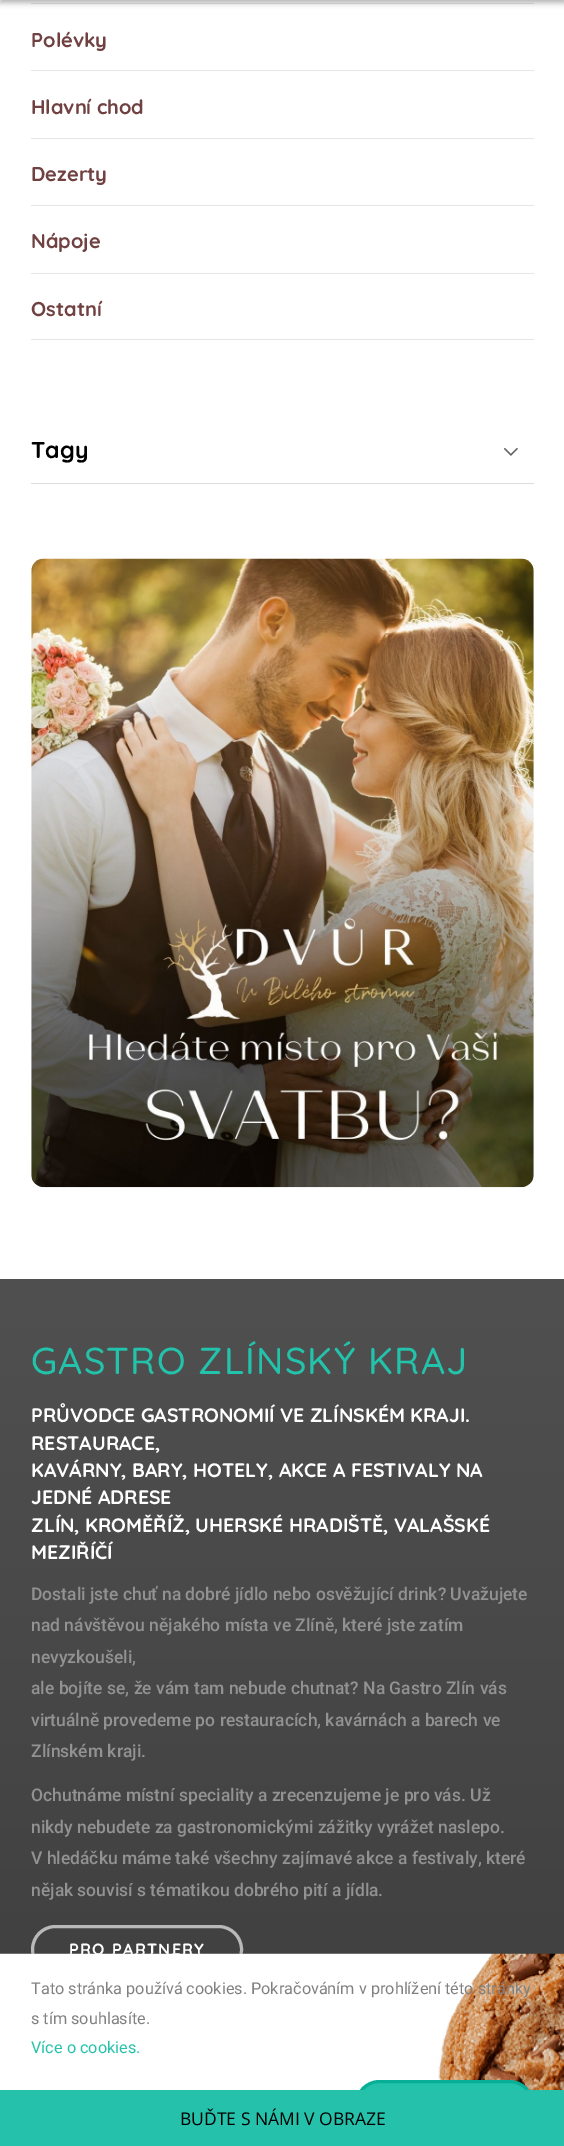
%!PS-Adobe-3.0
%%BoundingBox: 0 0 564 2146
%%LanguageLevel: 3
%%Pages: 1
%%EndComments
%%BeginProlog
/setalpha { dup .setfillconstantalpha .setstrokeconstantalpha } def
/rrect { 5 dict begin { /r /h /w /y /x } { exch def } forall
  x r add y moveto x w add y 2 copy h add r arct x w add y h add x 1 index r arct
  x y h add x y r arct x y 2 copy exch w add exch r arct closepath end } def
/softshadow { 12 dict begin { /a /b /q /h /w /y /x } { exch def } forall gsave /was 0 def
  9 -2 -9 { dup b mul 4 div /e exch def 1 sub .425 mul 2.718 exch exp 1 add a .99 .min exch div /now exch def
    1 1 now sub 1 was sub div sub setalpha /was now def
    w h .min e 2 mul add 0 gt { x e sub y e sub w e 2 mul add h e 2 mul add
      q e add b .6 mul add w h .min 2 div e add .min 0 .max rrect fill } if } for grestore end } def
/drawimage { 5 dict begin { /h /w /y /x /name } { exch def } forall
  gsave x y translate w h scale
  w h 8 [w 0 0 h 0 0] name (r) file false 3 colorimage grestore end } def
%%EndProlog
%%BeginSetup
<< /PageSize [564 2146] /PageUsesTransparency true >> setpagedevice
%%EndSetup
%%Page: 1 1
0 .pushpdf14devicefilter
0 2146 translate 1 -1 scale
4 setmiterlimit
1 setgray
0 0 564 2146 rectfill
0.902 setgray
31 3 503 1 rectfill
0 setgray
0 -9 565 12 0 3 0.3 softshadow
0.902 setgray
31 70 503 1 rectfill
31 138 503 1 rectfill
31 205 503 1 rectfill
31 273 503 1 rectfill
31 339 503 1 rectfill
0.867 setgray
31 483 503 1 rectfill
(images/1.raw) 503 447 15 9 drawimage
(images/2.raw) 31 558 503 630 drawimage
gsave newpath 0 1279 moveto 564 1279 lineto 564 1954 lineto 0 1954 lineto closepath clip newpath
<< /ShadingType 2 /ColorSpace /DeviceRGB /Coords [282 1279 283 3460] /Extend [true true] /Function << /FunctionType 2 /Domain [0 1] /C0 [0.314 0.314 0.314] /C1 [0.125 0.125 0.125] /N 1 >> >> shfill grestore
0.725 setgray
3 setlinewidth
32.5 1926.5 209 46 23 rrect stroke
0.196 setgray
0 1953 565 192 0 1 0.2 softshadow
/Quicksand-Bold [20 0 0 -20 0 0] selectfont
0.443 0.255 0.255 setrgbcolor
31 47 moveto (Polévky) show
31 114 moveto (Hlavní chod) show
31 181 moveto (Dezerty) show
31 248 moveto (Nápoje) show
31 316 moveto (Ostatní) show
/Quicksand-Bold [23 0 0 -23 0 0] selectfont
0 setgray
31 458 moveto (Tagy) show
/Quicksand-Medium [37.4 0 0 -37.4 0 0] selectfont
0.137 0.761 0.671 setrgbcolor
31 1374 moveto 1.25 0 (GASTRO ZLÍNSKÝ KRAJ) ashow
/Quicksand-Bold [19.5 0 0 -19.5 0 0] selectfont
1 setgray
31 1422 moveto (PRŮVODCE GASTRONOMIÍ VE ZLÍNSKÉM KRAJI.) show
31 1450 moveto (RESTAURACE,) show
31 1477 moveto (KAVÁRNY, BARY, HOTELY, AKCE A FESTIVALY NA) show
31 1504 moveto (JEDNÉ ADRESE) show
31 1532 moveto (ZLÍN, KROMĚŘÍŽ, UHERSKÉ HRADIŠTĚ, VALAŠSKÉ) show
31 1559 moveto (MEZIŘÍČÍ) show
/Roboto-Medium [17.5 0 0 -17.5 0 0] selectfont
0.573 setgray
31 1600 moveto (Dostali jste chuť na dobré jídlo nebo osvěžující drink? Uvažujete) show
31 1631 moveto (nad návštěvou nějakého místa ve Zlíně, které jste zatím) show
31 1663 moveto (nevyzkoušeli,) show
31 1694 moveto (ale bojíte se, že vám tam nebude chutnat? Na Gastro Zlín vás) show
31 1726 moveto (virtuálně provedeme po restauracích, kavárnách a barech ve) show
31 1757 moveto (Zlínském kraji.) show
31 1801 moveto (Ochutnáme místní speciality a zrecenzujeme je pro vás. Už) show
31 1833 moveto (nikdy nebudete za gastronomickými zážitky vyrážet naslepo.) show
31 1864 moveto (V hledáčku máme také všechny zajímavé akce a festivaly, které) show
31 1896 moveto (nějak souvisí s tématikou dobrého pití a jídla.) show
/Quicksand-Bold [16.25 0 0 -16.25 0 0] selectfont
1 setgray
69 1955 moveto 1.25 0 (PRO PARTNERY) ashow
(images/3.raw) 0 1953 564 137 drawimage
/Roboto-Regular [16.25 0 0 -16.25 0 0] selectfont
0.502 setgray
31 1994 moveto (Tato stránka používá cookies. Pokračováním v prohlížení této stránky) show
31 2024 moveto (s tím souhlasíte.) show
0.137 0.761 0.671 setrgbcolor
31 2053 moveto (Více o cookies.) show
356.5 2081.5 176 46 23 rrect gsave fill grestore
0.027 0.686 0.592 setrgbcolor
stroke
0.145 0.757 0.671 setrgbcolor
0 2090 564 56 rectfill
/OpenSans-Regular [17.5 0 0 -17.5 0 0] selectfont
0 setgray
180 2125 moveto (BUĎTE S NÁMI V OBRAZE) show
.poppdf14devicefilter showpage
%%EOF
